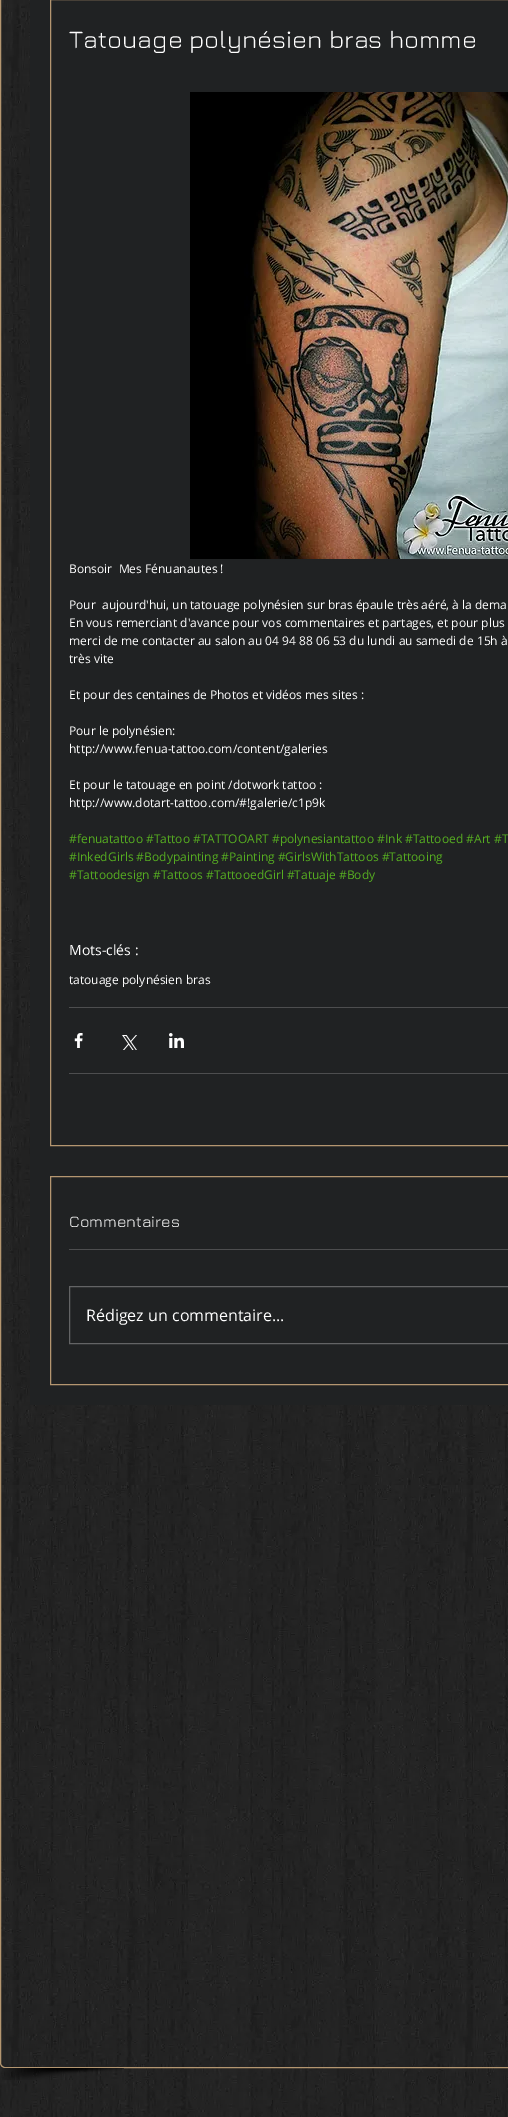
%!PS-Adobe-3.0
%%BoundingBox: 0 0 508 2117
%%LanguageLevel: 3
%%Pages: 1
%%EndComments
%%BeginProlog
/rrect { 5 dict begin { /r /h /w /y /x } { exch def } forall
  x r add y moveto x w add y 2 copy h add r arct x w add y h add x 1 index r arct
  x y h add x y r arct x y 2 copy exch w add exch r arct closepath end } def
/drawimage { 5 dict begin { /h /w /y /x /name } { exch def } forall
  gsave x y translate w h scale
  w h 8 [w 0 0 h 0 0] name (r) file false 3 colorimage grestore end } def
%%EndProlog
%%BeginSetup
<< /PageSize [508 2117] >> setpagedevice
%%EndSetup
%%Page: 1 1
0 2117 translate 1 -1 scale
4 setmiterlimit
1 setgray
0 0 508 2117 rectfill
(images/1.raw) 0 0 508 2117 drawimage
0.706 0.588 0.439 setrgbcolor
0.5 -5.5 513 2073 4.5 rrect stroke
(images/2.raw) 2 2068 122 12 drawimage
0.125 0.133 0.137 setrgbcolor
30 0 478 1405 rectfill
0.706 0.588 0.439 setrgbcolor
50.5 -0.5 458 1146 rectstroke
(images/3.raw) 190 92 318 467 drawimage
0.302 0.306 0.31 setrgbcolor
69 1007 439 1 rectfill
(images/4.raw) 74 1033 9 15 drawimage
(images/5.raw) 122 1035 15 15 drawimage
(images/6.raw) 169 1033 15 15 drawimage
69 1073 439 1 rectfill
0.706 0.588 0.439 setrgbcolor
50.5 1176.5 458 208 rectstroke
0.302 0.306 0.31 setrgbcolor
69 1249 439 1 rectfill
0.388 0.392 0.396 setrgbcolor
69.5 1286.5 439 57 rectstroke
/Jura-Regular [25 0 0 -25 0 0] selectfont
1 setgray
69 48 moveto (Tatouage polynésien bras homme) show
/OpenSans-Regular [12 0 0 -12 0 0] selectfont
69 573 moveto (Bonsoir  Mes Fénuanautes !) show
69 609 moveto (Pour  aujourd'hui, un tatouage polynésien sur bras épaule très aéré, à la dema) show
69 627 moveto (En vous remerciant d'avance pour vos commentaires et partages, et pour plus) show
69 645 moveto (merci de me contacter au salon au 04 94 88 06 53 du lundi au samedi de 15h à) show
69 663 moveto (très vite) show
69 699 moveto (Et pour des centaines de Photos et vidéos mes sites :) show
69 735 moveto (Pour le polynésien:) show
69 753 moveto (http://www.fenua-tattoo.com/content/galeries) show
69 789 moveto (Et pour le tatouage en point /dotwork tattoo :) show
69 807 moveto (http://www.dotart-tattoo.com/#!galerie/c1p9k) show
0.337 0.678 0.129 setrgbcolor
69 843 moveto (#fenuatattoo #Tattoo #TATTOOART #polynesiantattoo #Ink #Tattooed #Art #T) show
69 861 moveto (#InkedGirls #Bodypainting #Painting #GirlsWithTattoos #Tattooing) show
69 879 moveto (#Tattoodesign #Tattoos #TattooedGirl #Tatuaje #Body) show
/OpenSans-Regular [14 0 0 -14 0 0] selectfont
1 setgray
69 955 moveto (Mots-clés :) show
/OpenSans-Regular [12 0 0 -12 0 0] selectfont
69 984 moveto (tatouage polynésien bras) show
/Jura-Regular [16 0 0 -16 0 0] selectfont
69 1227 moveto (Commentaires) show
/OpenSans-Regular [16 0 0 -16 0 0] selectfont
86 1321 moveto (Rédigez un commentaire...) show
showpage
%%EOF
